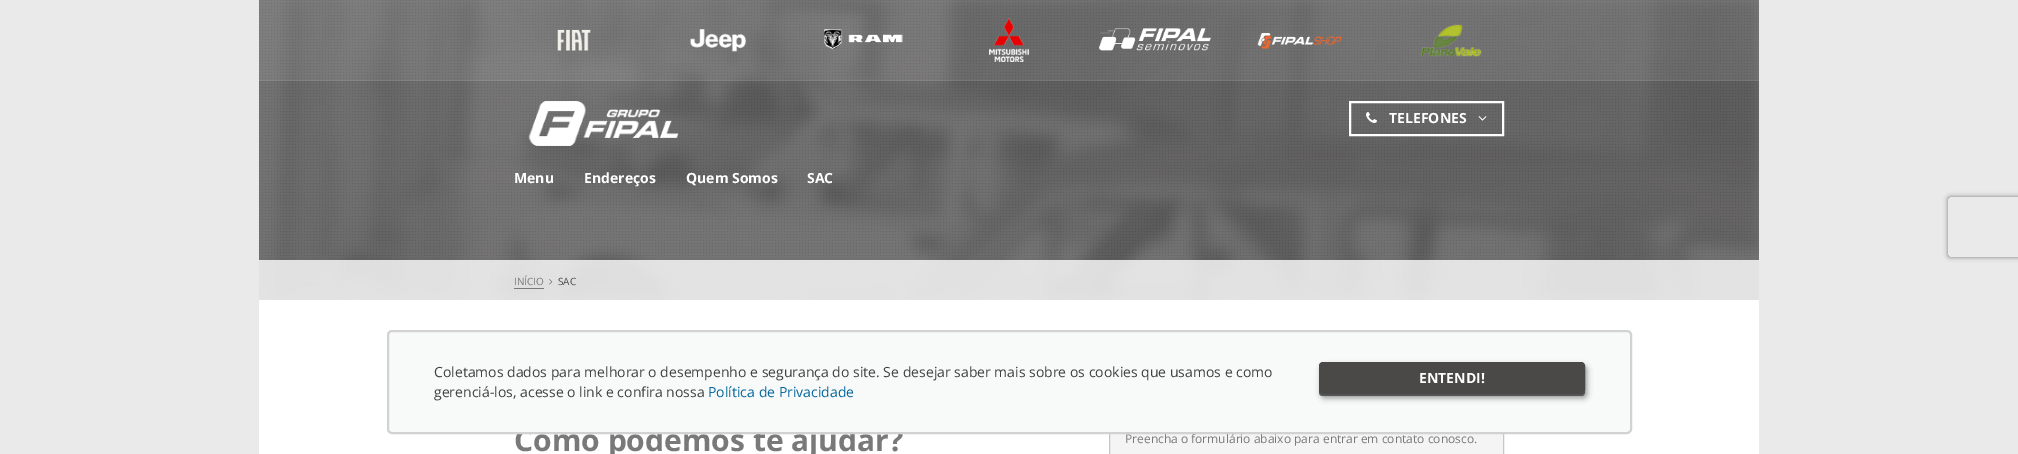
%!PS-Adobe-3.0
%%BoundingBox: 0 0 2018 454
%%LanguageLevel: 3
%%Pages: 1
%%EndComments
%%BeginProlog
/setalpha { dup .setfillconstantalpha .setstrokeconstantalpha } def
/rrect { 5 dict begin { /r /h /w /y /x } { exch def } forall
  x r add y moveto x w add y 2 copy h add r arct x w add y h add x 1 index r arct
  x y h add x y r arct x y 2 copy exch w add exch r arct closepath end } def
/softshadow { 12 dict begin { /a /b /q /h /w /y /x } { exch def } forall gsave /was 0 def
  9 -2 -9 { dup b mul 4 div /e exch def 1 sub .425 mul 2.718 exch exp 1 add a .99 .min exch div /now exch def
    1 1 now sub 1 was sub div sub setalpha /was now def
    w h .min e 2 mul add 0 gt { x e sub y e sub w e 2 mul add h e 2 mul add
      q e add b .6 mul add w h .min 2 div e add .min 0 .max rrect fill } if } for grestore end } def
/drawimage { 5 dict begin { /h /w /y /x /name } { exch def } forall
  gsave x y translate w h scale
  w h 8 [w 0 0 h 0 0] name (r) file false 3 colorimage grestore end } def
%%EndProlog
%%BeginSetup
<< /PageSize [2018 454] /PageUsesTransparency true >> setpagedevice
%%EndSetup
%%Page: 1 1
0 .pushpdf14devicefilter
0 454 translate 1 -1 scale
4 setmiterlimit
0.918 setgray
0 0 2018 454 rectfill
0.482 0.475 0.475 setrgbcolor
259 0 1500 300 rectfill
(images/1.raw) 259 0 1500 300 drawimage
(images/2.raw) 259 0 1500 300 drawimage
0.08 setalpha
1 setgray
259 0 1500 81 rectfill
0.09 setalpha
0.957 setgray
259 80 1500 1 rectfill
1 setalpha
(images/3.raw) 557 29 34 22 drawimage
(images/4.raw) 690 29 56 23 drawimage
(images/5.raw) 824 29 79 22 drawimage
(images/6.raw) 989 18 40 44 drawimage
(images/7.raw) 1099 28 112 23 drawimage
(images/8.raw) 1257 33 85 16 drawimage
(images/9.raw) 1420 24 62 33 drawimage
(images/10.raw) 528 101 151 45 drawimage
1 setgray
2 setlinewidth
1350 102 153 33 rectstroke
(images/11.raw) 1366 112 11 11 drawimage
(images/12.raw) 1478 116 9 5 drawimage
0.8 setalpha
259 260 1500 40 rectfill
1 setalpha
0.475 setgray
514 288 30 1 rectfill
(images/13.raw) 549 279 4 6 drawimage
gsave
newpath 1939 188 moveto 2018 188 lineto 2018 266 lineto 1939 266 lineto closepath 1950 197 moveto 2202 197 lineto 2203 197 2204 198 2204 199 curveto 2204 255 lineto 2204 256 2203 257 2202 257 curveto 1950 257 lineto 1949 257 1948 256 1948 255 curveto 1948 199 lineto 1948 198 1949 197 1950 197 curveto closepath eoclip newpath
0.502 setgray
1948 197 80 60 2 2.5 1 softshadow
grestore
1 setgray
259 300 1500 154 rectfill
0.957 setgray
1110 434 393 20 rectfill
0.776 setgray
1 setlinewidth
1109.5 360.5 394 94 rectstroke
/OpenSans-Bold [14 0 0 -14 0 0] selectfont
1 setgray
1389 123 moveto (TELEFONES) show
514 183 moveto (Menu) show
584 183 moveto (Endereços) show
686 183 moveto (Quem Somos) show
807 183 moveto (SAC) show
/OpenSans-Regular [10 0 0 -10 0 0] selectfont
0.475 setgray
514 285 moveto (INÍCIO) show
0.294 0.282 0.282 setrgbcolor
558 285 moveto (SAC) show
/OpenSans-Bold [30 0 0 -30 0 0] selectfont
0.475 setgray
514 451 moveto (Como podemos te ajudar?) show
/OpenSans-Regular [12 0 0 -12 0 0] selectfont
1125 443 moveto (Preencha o formulário abaixo para entrar em contato conosco.) show
0.973 0.976 0.976 setrgbcolor
388 331 1243 102 4 rrect gsave fill grestore
0.824 setgray
2 setlinewidth
stroke
0.439 setgray
1321 366 266 32 4 3 0.75 softshadow
0.341 setgray
newpath 1319 390 moveto 1319 393 1319 396 1323 396 curveto 1582 396 lineto 1585 395 1585 393 1585 390 curveto 1585 392 1583 394 1581 394 curveto 1323 394 lineto 1321 394 1319 392 1319 390 curveto closepath fill
0.294 0.282 0.282 setrgbcolor
1319.5 362.5 265 31 3.5 rrect gsave fill grestore
1 setlinewidth
stroke
/OpenSans-Bold [14 0 0 -14 0 0] selectfont
1 setgray
1419 383 moveto (ENTENDI!) show
/OpenSans-Regular [14 0 0 -14 0 0] selectfont
0.016 0.4 0.612 setrgbcolor
708 397 moveto (Política de Privacidade) show
0.251 setgray
434 397 moveto (gerenciá-los, acesse o link e confira nossa) show
434 377 moveto (Coletamos dados para melhorar o desempenho e segurança do site. Se desejar saber mais sobre os cookies que usamos e como) show
.poppdf14devicefilter showpage
%%EOF
